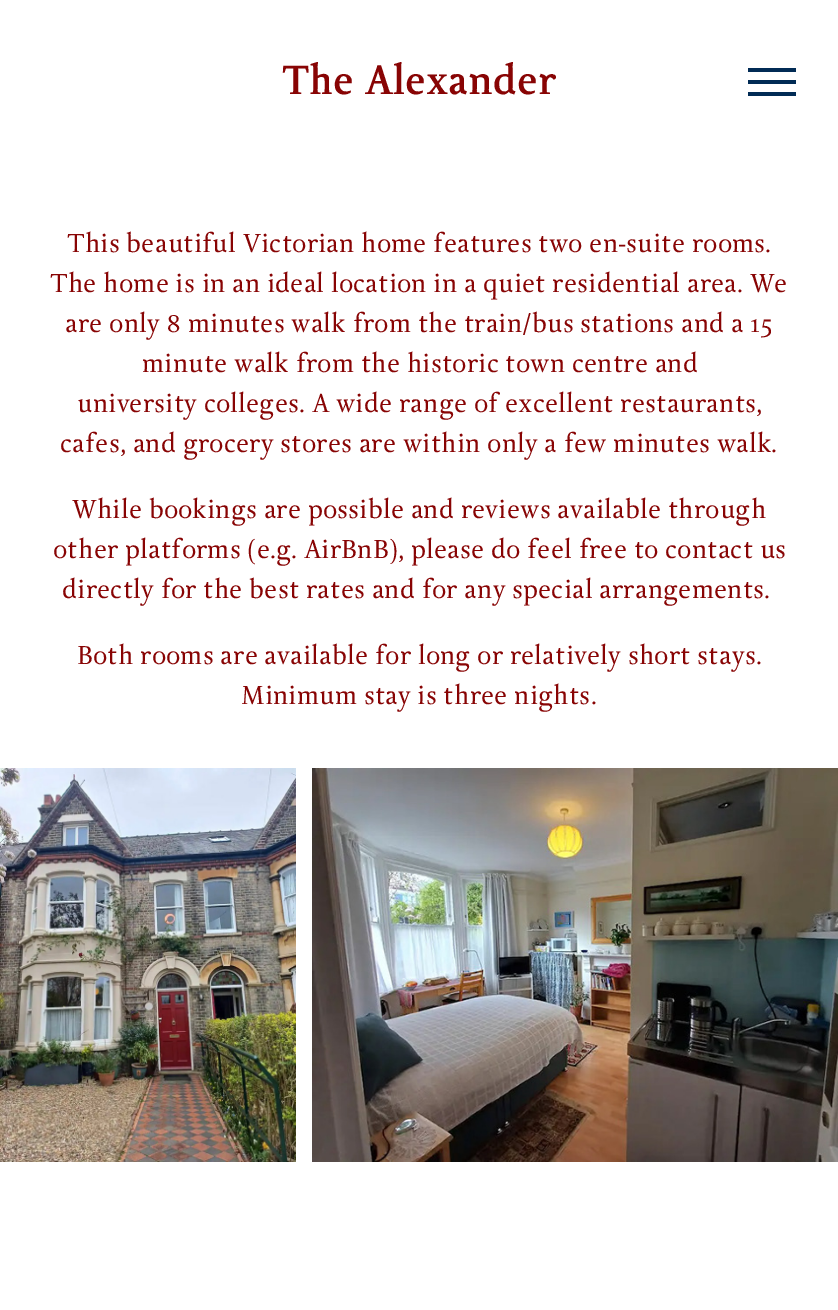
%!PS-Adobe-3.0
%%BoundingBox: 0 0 838 1310
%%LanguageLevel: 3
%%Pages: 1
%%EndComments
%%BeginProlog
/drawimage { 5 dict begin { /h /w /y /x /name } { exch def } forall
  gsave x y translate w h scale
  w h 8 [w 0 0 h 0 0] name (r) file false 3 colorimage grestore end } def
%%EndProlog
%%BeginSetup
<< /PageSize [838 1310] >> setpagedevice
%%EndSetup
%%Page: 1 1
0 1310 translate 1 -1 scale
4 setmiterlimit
1 setgray
0 0 838 1310 rectfill
0.004 0.169 0.333 setrgbcolor
748 68 48 4 rectfill
748 80 48 4 rectfill
748 92 48 4 rectfill
(images/1.raw) 0 768 296 394 drawimage
(images/2.raw) 312 768 526 394 drawimage
/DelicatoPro-Bold [44 0 0 -44 0 0] selectfont
0.533 0.016 0.016 setrgbcolor
282 94 moveto (The Alexander) show
/DelicatoPro-Regular [28 0 0 -28 0 0] selectfont
67 252 moveto (This beautiful Victorian home features two en-suite rooms.) show
50 292 moveto (The home is in an ideal location in a quiet residential area. We) show
65 332 moveto (are only 8 minutes walk from the train/bus stations and a 15) show
142 372 moveto (minute walk from the historic town centre and) show
77 412 moveto (university colleges. A wide range of excellent restaurants,) show
60 452 moveto (cafes, and grocery stores are within only a few minutes walk.) show
72 518 moveto (While bookings are possible and reviews available through) show
53 558 moveto (other platforms \(e.g. AirBnB\), please do feel free to contact us) show
62 598 moveto (directly for the best rates and for any special arrangements.) show
77 664 moveto (Both rooms are available for long or relatively short stays.) show
241 704 moveto (Minimum stay is three nights.) show
showpage
%%EOF
